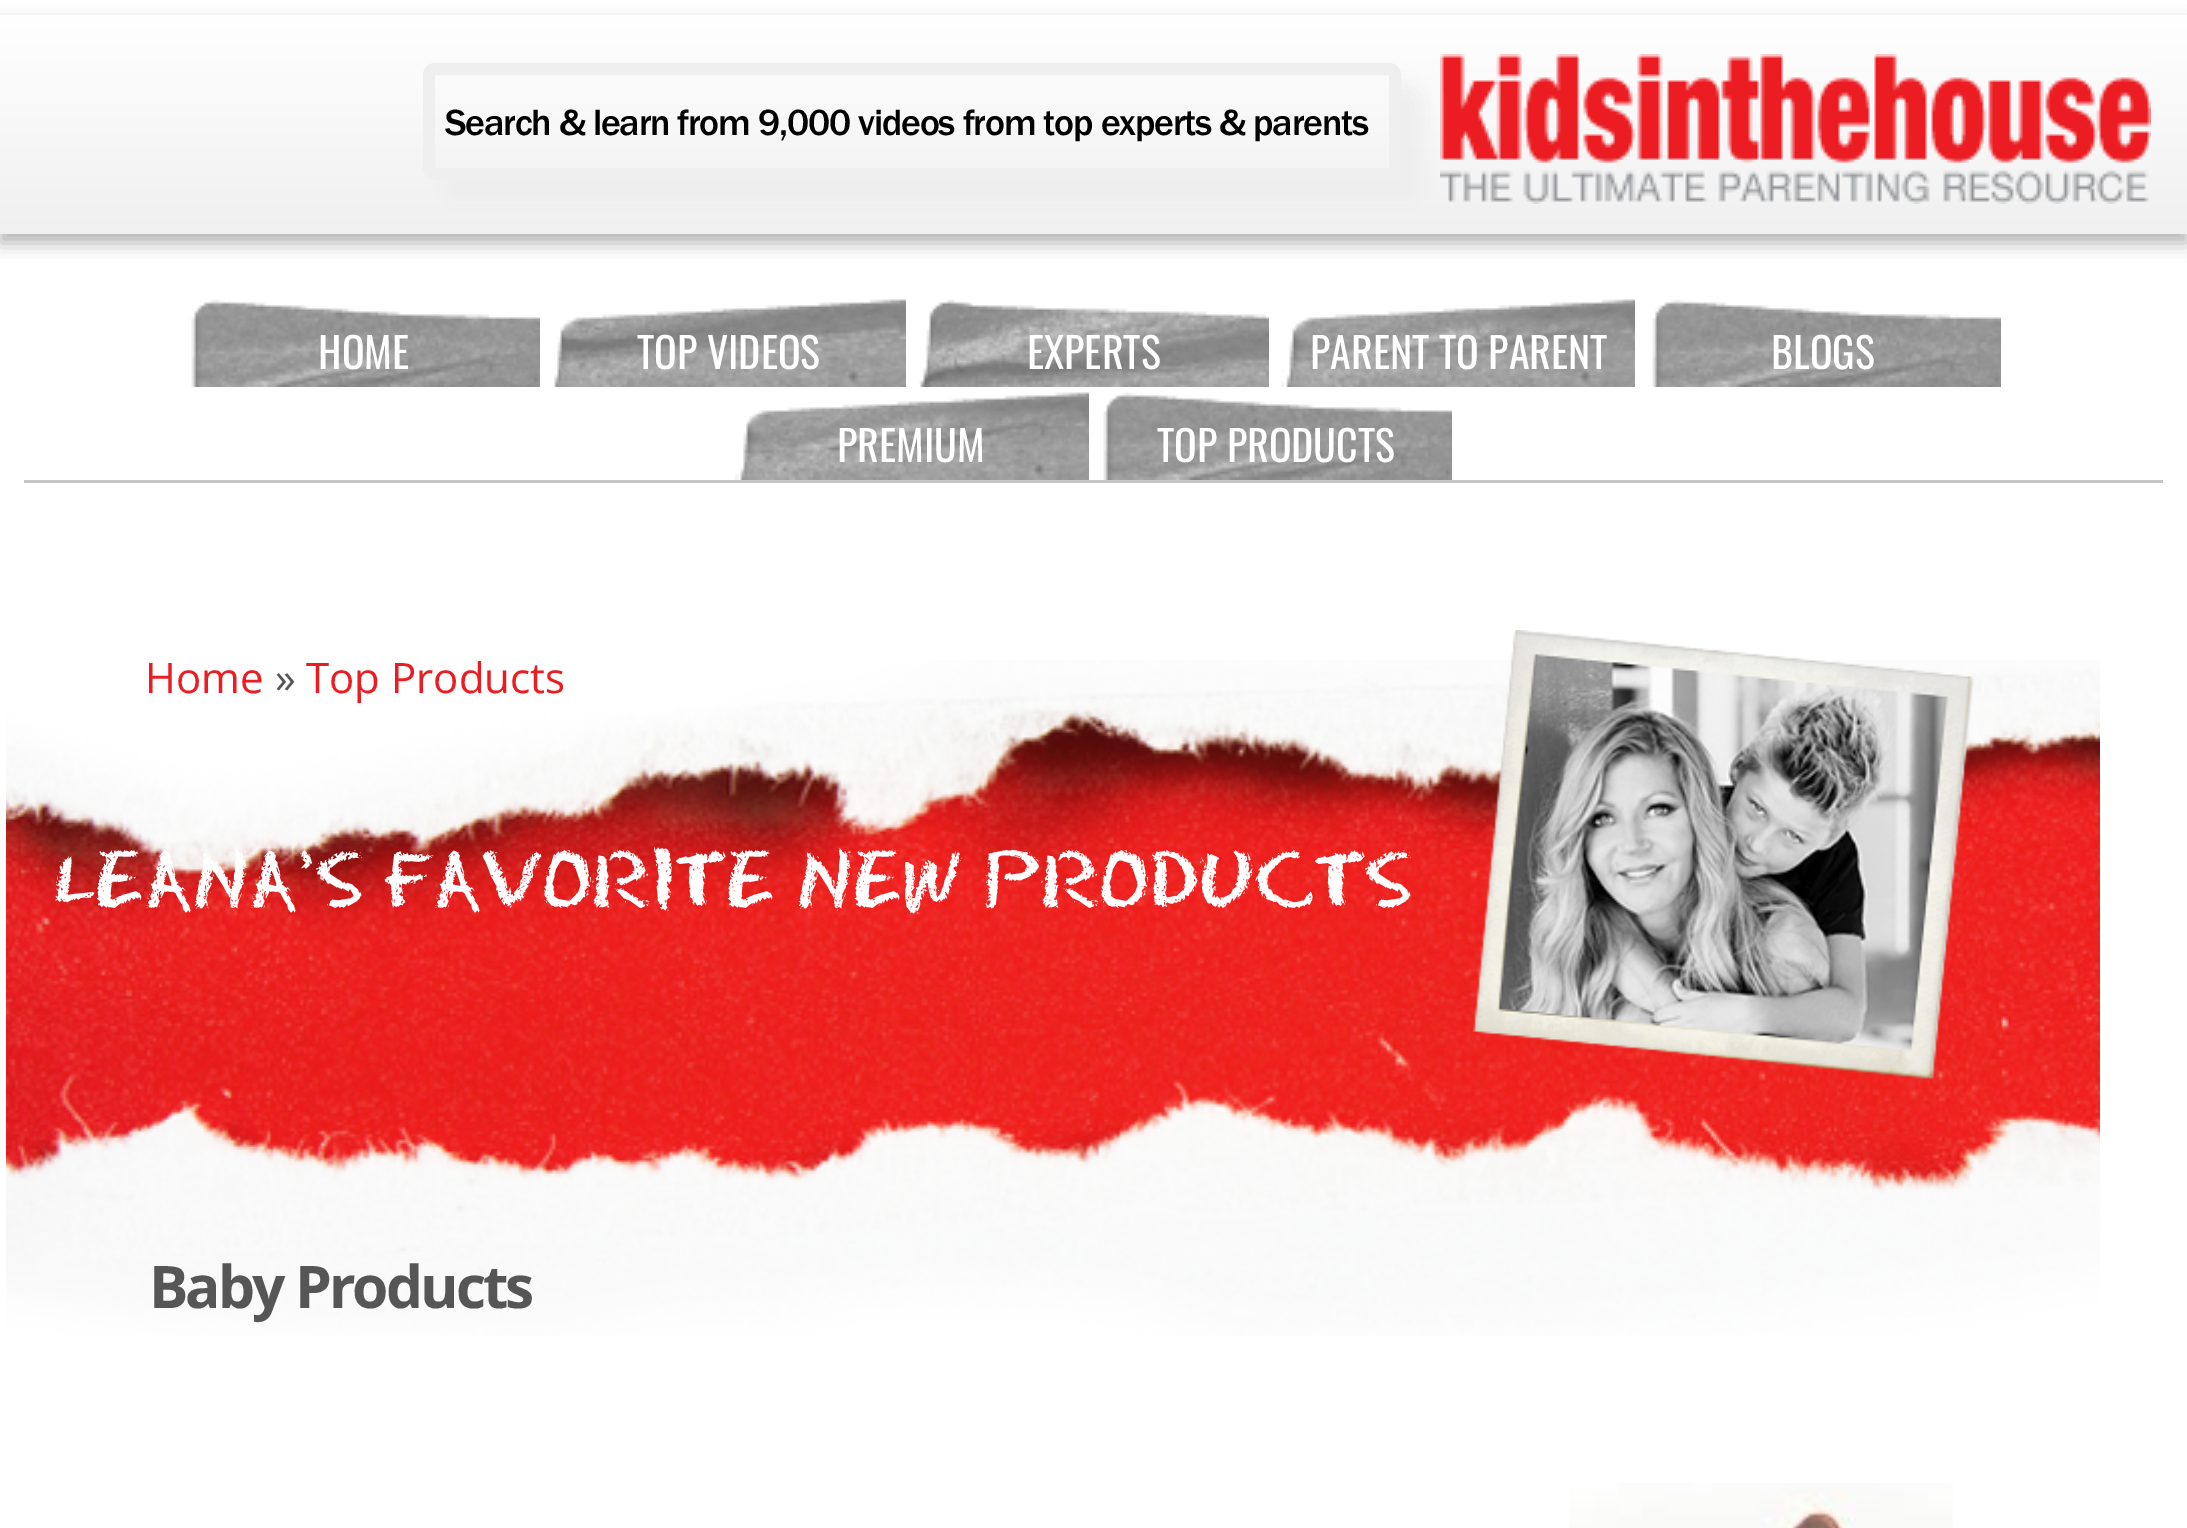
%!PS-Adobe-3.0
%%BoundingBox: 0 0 2187 1528
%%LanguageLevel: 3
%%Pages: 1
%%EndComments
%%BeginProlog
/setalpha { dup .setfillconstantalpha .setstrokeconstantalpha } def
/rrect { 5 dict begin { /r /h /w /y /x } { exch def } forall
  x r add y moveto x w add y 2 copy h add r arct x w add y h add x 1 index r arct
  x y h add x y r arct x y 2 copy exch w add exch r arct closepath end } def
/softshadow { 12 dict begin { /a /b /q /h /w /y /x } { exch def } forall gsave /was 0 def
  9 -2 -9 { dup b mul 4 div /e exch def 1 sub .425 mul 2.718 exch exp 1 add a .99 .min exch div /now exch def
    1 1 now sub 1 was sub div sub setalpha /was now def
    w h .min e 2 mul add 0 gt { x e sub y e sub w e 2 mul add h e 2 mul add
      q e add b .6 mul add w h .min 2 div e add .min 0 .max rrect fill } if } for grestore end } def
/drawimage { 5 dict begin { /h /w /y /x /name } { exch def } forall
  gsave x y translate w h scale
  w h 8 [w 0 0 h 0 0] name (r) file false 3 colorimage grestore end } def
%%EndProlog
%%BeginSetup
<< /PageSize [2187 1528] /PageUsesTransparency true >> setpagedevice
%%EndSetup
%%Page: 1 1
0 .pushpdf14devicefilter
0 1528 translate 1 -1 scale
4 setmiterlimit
1 setgray
0 0 2187 1528 rectfill
0 setgray
0 24 2187 219 0 9 0.3 softshadow
gsave newpath 0 15 moveto 2187 15 lineto 2187 234 lineto 0 234 lineto closepath clip newpath
<< /ShadingType 2 /ColorSpace /DeviceRGB /Coords [1094 15 1094 234] /Extend [true true] /Function << /FunctionType 2 /Domain [0 1] /C0 [1 1 1] /C1 [0.941 0.941 0.941] /N 1 >> >> shfill grestore
(images/1.raw) 1440 54 711 150 drawimage
gsave
newpath 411 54 moveto 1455 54 lineto 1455 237 lineto 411 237 lineto closepath 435 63 moveto 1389 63 lineto 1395.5 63 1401 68.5 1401 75 curveto 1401 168 lineto 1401 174.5 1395.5 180 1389 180 curveto 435 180 lineto 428.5 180 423 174.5 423 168 curveto 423 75 lineto 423 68.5 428.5 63 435 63 curveto closepath eoclip newpath
0.929 setgray
444 87 978 117 12 10.5 1 softshadow
grestore
0.937 setgray
12 setlinewidth
429 69 966 105 6 rrect stroke
0.769 0.773 0.776 setrgbcolor
24 480 2139 3 rectfill
(images/2.raw) 191 299 349 88 drawimage
(images/3.raw) 554 299 352 88 drawimage
(images/4.raw) 919 299 350 88 drawimage
(images/5.raw) 1281 299 354 88 drawimage
(images/2.raw) 1652 299 349 88 drawimage
(images/6.raw) 735 392 354 88 drawimage
(images/7.raw) 1103 392 349 88 drawimage
(images/8.raw) 6 660 2094 676 drawimage
(images/9.raw) 1473 630 501 450 drawimage
(images/10.raw) 1570 1483 383 45 drawimage
/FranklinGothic-Medium [37.8 0 0 -37.8 0 0] selectfont
0 setgray
445 135 moveto -1.2 0 (Search & learn from 9,000 videos from top experts & parents) ashow
/Oswald-Regular [42 0 0 -42 0 0] selectfont
1 setgray
318 369 moveto (HOME) show
637 369 moveto (TOP VIDEOS) show
1027 369 moveto (EXPERTS) show
1310 369 moveto (PARENT TO PARENT) show
1771 369 moveto (BLOGS) show
837 462 moveto (PREMIUM) show
1157 462 moveto (TOP PRODUCTS) show
/OpenSans-Regular [42 0 0 -42 0 0] selectfont
0.922 0.114 0.137 setrgbcolor
145 693 moveto (Home) show
0.337 setgray
275 693 moveto (») show
0.922 0.114 0.137 setrgbcolor
306 693 moveto (Top Products) show
/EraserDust-Regular [84 0 0 -84 0 0] selectfont
1 setgray
54 908 moveto (LEANA'S FAVORITE NEW PRODUCTS) show
/OpenSans-Bold [58.75 0 0 -58.75 0 0] selectfont
0.337 setgray
149 1308 moveto -3 0 (Baby Products) ashow
.poppdf14devicefilter showpage
%%EOF
